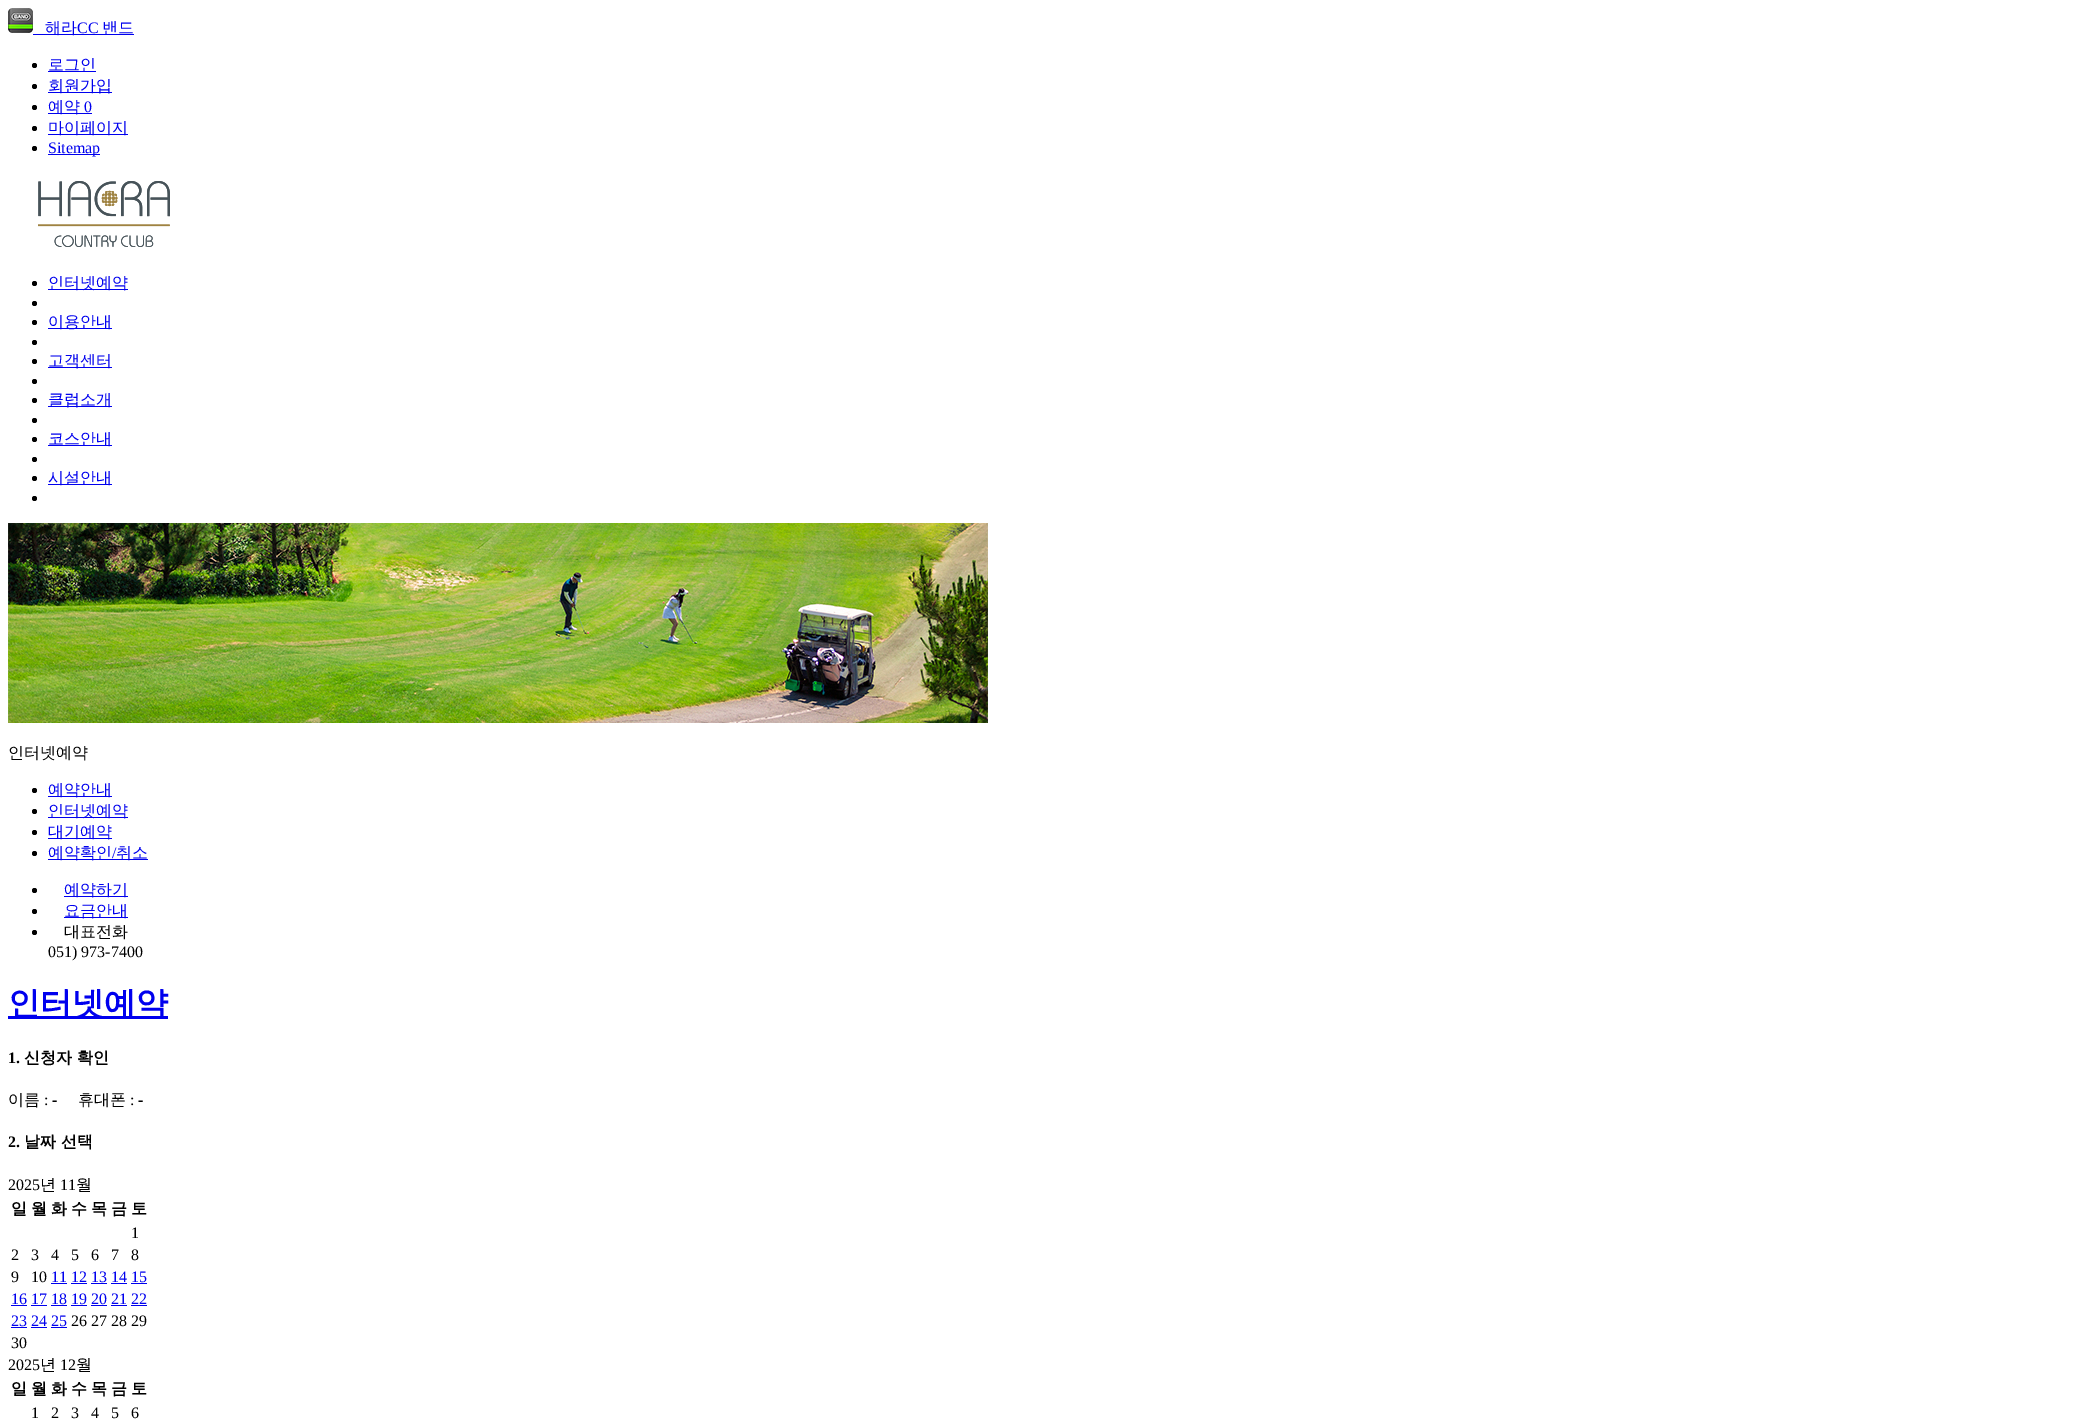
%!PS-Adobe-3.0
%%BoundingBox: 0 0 2091 1426
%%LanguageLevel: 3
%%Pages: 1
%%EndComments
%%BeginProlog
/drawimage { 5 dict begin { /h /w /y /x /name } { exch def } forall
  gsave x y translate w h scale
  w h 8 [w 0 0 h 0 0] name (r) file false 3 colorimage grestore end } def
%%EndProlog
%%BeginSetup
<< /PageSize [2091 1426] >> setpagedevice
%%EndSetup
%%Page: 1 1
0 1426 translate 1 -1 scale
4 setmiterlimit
1 setgray
0 0 2091 1426 rectfill
(images/1.raw) 8 8 25 25 drawimage
0 0 0.933 setrgbcolor
33 34 101 1 rectfill
0 setgray
newpath 34.5 65.5 2.5 0 360 arc closepath fill
0 0 0.933 setrgbcolor
48 71 48 1 rectfill
0 setgray
newpath 34.5 86.5 2.5 0 360 arc closepath fill
0 0 0.933 setrgbcolor
48 92 64 1 rectfill
0 setgray
newpath 34.5 107.5 2.5 0 360 arc closepath fill
0 0 0.933 setrgbcolor
48 113 44 1 rectfill
0 setgray
newpath 34.5 128.5 2.5 0 360 arc closepath fill
0 0 0.933 setrgbcolor
48 134 80 1 rectfill
0 setgray
newpath 34.5 148.5 2.5 0 360 arc closepath fill
0 0 0.933 setrgbcolor
48 154 52 1 rectfill
(images/2.raw) 38 181 132 66 drawimage
0 setgray
newpath 34.5 283.5 2.5 0 360 arc closepath fill
0 0 0.933 setrgbcolor
48 289 80 1 rectfill
0 setgray
newpath 34.5 303.5 2.5 0 360 arc closepath fill
newpath 34.5 322.5 2.5 0 360 arc closepath fill
0 0 0.933 setrgbcolor
48 328 64 1 rectfill
0 setgray
newpath 34.5 342.5 2.5 0 360 arc closepath fill
newpath 34.5 361.5 2.5 0 360 arc closepath fill
0 0 0.933 setrgbcolor
48 367 64 1 rectfill
0 setgray
newpath 34.5 381.5 2.5 0 360 arc closepath fill
newpath 34.5 400.5 2.5 0 360 arc closepath fill
0 0 0.933 setrgbcolor
48 406 64 1 rectfill
0 setgray
newpath 34.5 420.5 2.5 0 360 arc closepath fill
newpath 34.5 439.5 2.5 0 360 arc closepath fill
0 0 0.933 setrgbcolor
48 445 64 1 rectfill
0 setgray
newpath 34.5 459.5 2.5 0 360 arc closepath fill
newpath 34.5 478.5 2.5 0 360 arc closepath fill
0 0 0.933 setrgbcolor
48 484 64 1 rectfill
0 setgray
newpath 34.5 498.5 2.5 0 360 arc closepath fill
(images/3.raw) 8 523 980 200 drawimage
newpath 34.5 790.5 2.5 0 360 arc closepath fill
0 0 0.933 setrgbcolor
48 796 64 1 rectfill
0 setgray
newpath 34.5 811.5 2.5 0 360 arc closepath fill
0 0 0.933 setrgbcolor
48 817 80 1 rectfill
0 setgray
newpath 34.5 832.5 2.5 0 360 arc closepath fill
0 0 0.933 setrgbcolor
48 838 64 1 rectfill
0 setgray
newpath 34.5 853.5 2.5 0 360 arc closepath fill
0 0 0.933 setrgbcolor
48 859 100 1 rectfill
0 setgray
newpath 34.5 890.5 2.5 0 360 arc closepath fill
0 0 0.933 setrgbcolor
64 896 64 1 rectfill
0 setgray
newpath 34.5 911.5 2.5 0 360 arc closepath fill
0 0 0.933 setrgbcolor
64 917 64 1 rectfill
0 setgray
newpath 34.5 932.5 2.5 0 360 arc closepath fill
0 0 0.933 setrgbcolor
8 1016 160 3 rectfill
51 1283 16 1 rectfill
71 1283 16 1 rectfill
91 1283 16 1 rectfill
111 1283 16 1 rectfill
131 1283 16 1 rectfill
11 1305 16 1 rectfill
31 1305 16 1 rectfill
51 1305 16 1 rectfill
71 1305 16 1 rectfill
91 1305 16 1 rectfill
111 1305 16 1 rectfill
131 1305 16 1 rectfill
11 1327 16 1 rectfill
31 1327 16 1 rectfill
51 1327 16 1 rectfill
/WenQuanYiZenHei-Medium [16 0 0 -16 0 0] selectfont
45 33 moveto (해라) show
/LiberationSerif-Regular [16 0 0 -16 0 0] selectfont
77 33 moveto (CC) show
/WenQuanYiZenHei-Medium [16 0 0 -16 0 0] selectfont
102 33 moveto (밴드) show
48 70 moveto (로그인) show
48 91 moveto (회원가입) show
48 112 moveto (예약) show
/LiberationSerif-Regular [16 0 0 -16 0 0] selectfont
84 112 moveto (0) show
/WenQuanYiZenHei-Medium [16 0 0 -16 0 0] selectfont
48 133 moveto (마이페이지) show
/LiberationSerif-Regular [16 0 0 -16 0 0] selectfont
48 153 moveto (Sitemap) show
/WenQuanYiZenHei-Medium [16 0 0 -16 0 0] selectfont
48 288 moveto (인터넷예약) show
48 327 moveto (이용안내) show
48 366 moveto (고객센터) show
48 405 moveto (클럽소개) show
48 444 moveto (코스안내) show
48 483 moveto (시설안내) show
0 setgray
8 758 moveto (인터넷예약) show
0 0 0.933 setrgbcolor
48 795 moveto (예약안내) show
48 816 moveto (인터넷예약) show
48 837 moveto (대기예약) show
48 858 moveto (예약확인) show
/LiberationSerif-Regular [16 0 0 -16 0 0] selectfont
112 858 moveto (/) show
/WenQuanYiZenHei-Medium [16 0 0 -16 0 0] selectfont
116 858 moveto (취소) show
64 895 moveto (예약하기) show
64 916 moveto (요금안내) show
0 setgray
64 937 moveto (대표전화) show
/LiberationSerif-Regular [16 0 0 -16 0 0] selectfont
48 957 moveto (051\) 973-7400) show
/WenQuanYiZenHei-Bold [32 0 0 -32 0 0] selectfont
0 0 0.933 setrgbcolor
8 1014 moveto (인터넷예약) show
/LiberationSerif-Bold [16 0 0 -16 0 0] selectfont
0 setgray
8 1063 moveto (1.) show
/WenQuanYiZenHei-Bold [16 0 0 -16 0 0] selectfont
24 1063 moveto (신청자 확인) show
/WenQuanYiZenHei-Medium [16 0 0 -16 0 0] selectfont
8 1105 moveto (이름) show
/LiberationSerif-Regular [16 0 0 -16 0 0] selectfont
44 1105 moveto (:) show
/LiberationSerif-Bold [16 0 0 -16 0 0] selectfont
52 1105 moveto (-) show
/WenQuanYiZenHei-Medium [16 0 0 -16 0 0] selectfont
78 1105 moveto (휴대폰) show
/LiberationSerif-Regular [16 0 0 -16 0 0] selectfont
130 1105 moveto (:) show
/LiberationSerif-Bold [16 0 0 -16 0 0] selectfont
138 1105 moveto (-) show
8 1147 moveto (2.) show
/WenQuanYiZenHei-Bold [16 0 0 -16 0 0] selectfont
24 1147 moveto (날짜 선택) show
/LiberationSerif-Regular [16 0 0 -16 0 0] selectfont
8 1190 moveto (2025) show
/WenQuanYiZenHei-Medium [16 0 0 -16 0 0] selectfont
40 1190 moveto (년) show
/LiberationSerif-Regular [16 0 0 -16 0 0] selectfont
60 1190 moveto (11) show
/WenQuanYiZenHei-Medium [16 0 0 -16 0 0] selectfont
76 1190 moveto (월) show
/WenQuanYiZenHei-Bold [16 0 0 -16 0 0] selectfont
11 1214 moveto (일) show
31 1214 moveto (월) show
51 1214 moveto (화) show
71 1214 moveto (수) show
91 1214 moveto (목) show
111 1214 moveto (금) show
131 1214 moveto (토) show
/LiberationSerif-Regular [16 0 0 -16 0 0] selectfont
131 1238 moveto (1) show
11 1260 moveto (2) show
31 1260 moveto (3) show
51 1260 moveto (4) show
71 1260 moveto (5) show
91 1260 moveto (6) show
111 1260 moveto (7) show
131 1260 moveto (8) show
11 1282 moveto (9) show
31 1282 moveto (10) show
0 0 0.933 setrgbcolor
51 1282 moveto (11 12 13 14 15) show
11 1304 moveto (16 17 18 19 20 21 22) show
11 1326 moveto (23 24 25) show
0 setgray
71 1326 moveto (26 27 28 29) show
11 1348 moveto (30) show
8 1370 moveto (2025) show
/WenQuanYiZenHei-Medium [16 0 0 -16 0 0] selectfont
40 1370 moveto (년) show
/LiberationSerif-Regular [16 0 0 -16 0 0] selectfont
60 1370 moveto (12) show
/WenQuanYiZenHei-Medium [16 0 0 -16 0 0] selectfont
76 1370 moveto (월) show
/WenQuanYiZenHei-Bold [16 0 0 -16 0 0] selectfont
11 1394 moveto (일) show
31 1394 moveto (월) show
51 1394 moveto (화) show
71 1394 moveto (수) show
91 1394 moveto (목) show
111 1394 moveto (금) show
131 1394 moveto (토) show
/LiberationSerif-Regular [16 0 0 -16 0 0] selectfont
31 1418 moveto (1) show
51 1418 moveto (2) show
71 1418 moveto (3) show
91 1418 moveto (4) show
111 1418 moveto (5) show
131 1418 moveto (6) show
showpage
%%EOF
